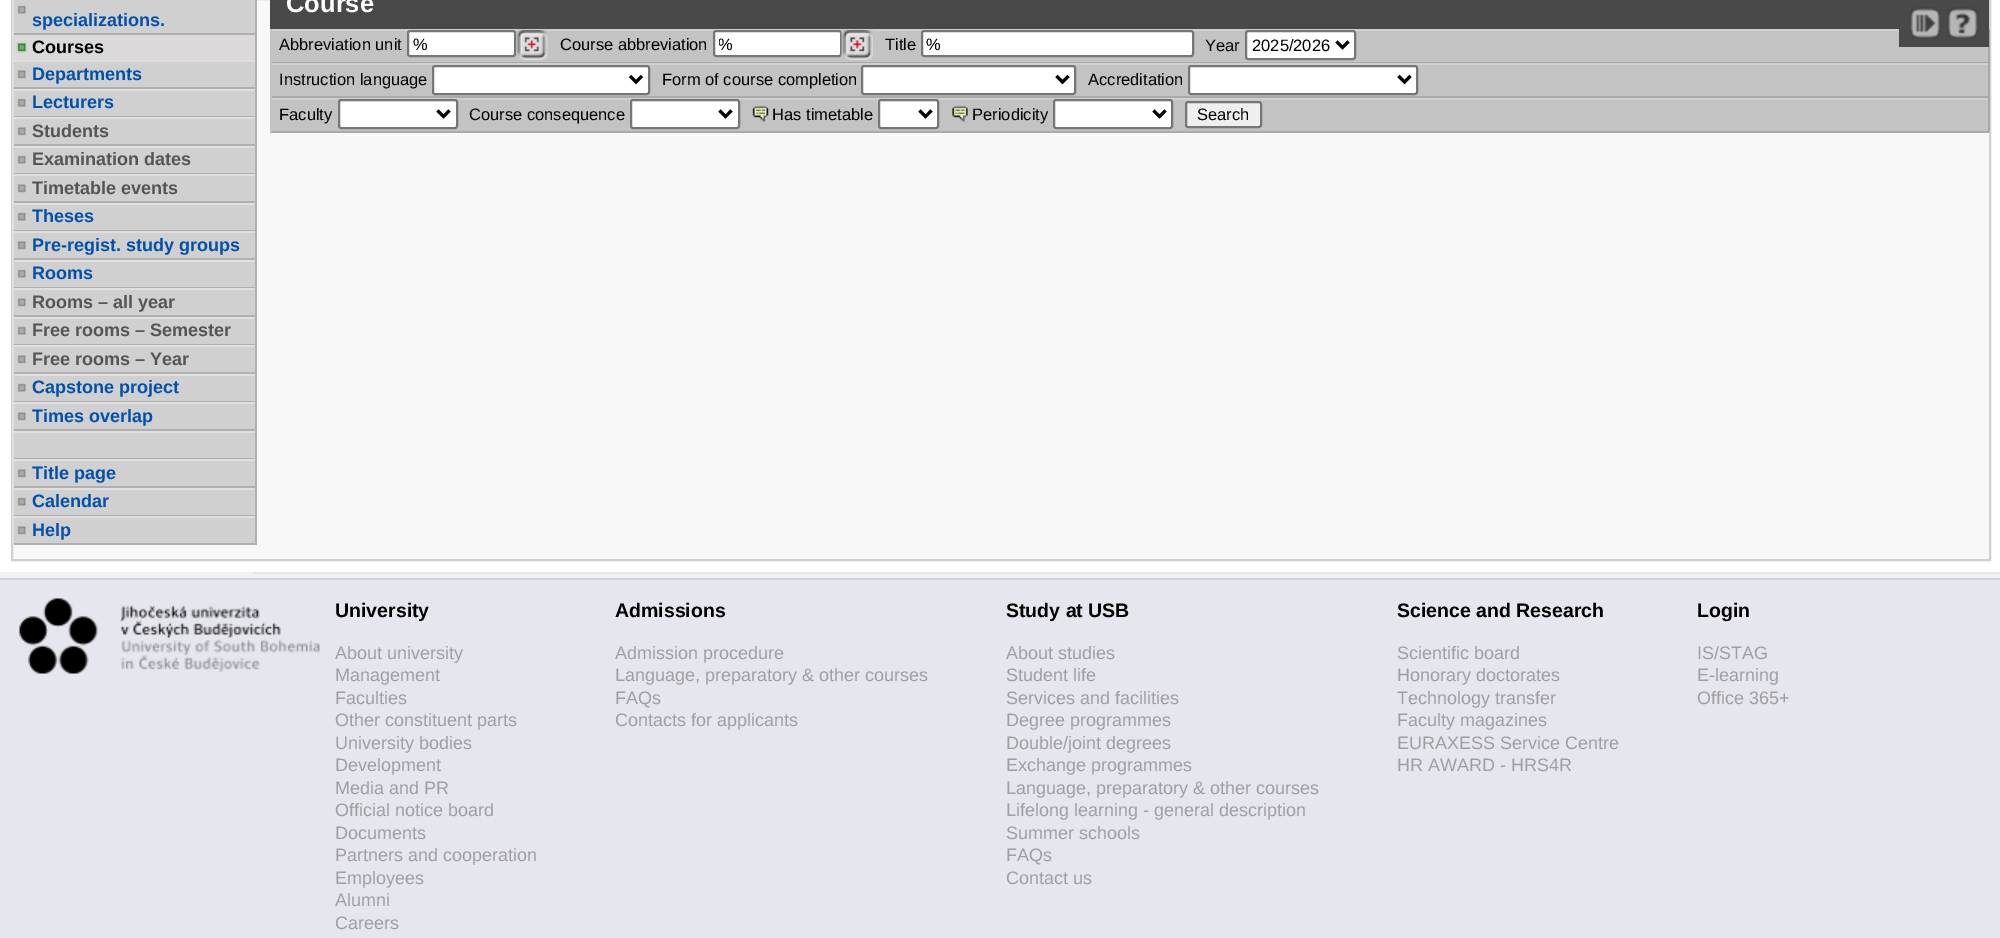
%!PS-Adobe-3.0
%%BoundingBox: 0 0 2000 938
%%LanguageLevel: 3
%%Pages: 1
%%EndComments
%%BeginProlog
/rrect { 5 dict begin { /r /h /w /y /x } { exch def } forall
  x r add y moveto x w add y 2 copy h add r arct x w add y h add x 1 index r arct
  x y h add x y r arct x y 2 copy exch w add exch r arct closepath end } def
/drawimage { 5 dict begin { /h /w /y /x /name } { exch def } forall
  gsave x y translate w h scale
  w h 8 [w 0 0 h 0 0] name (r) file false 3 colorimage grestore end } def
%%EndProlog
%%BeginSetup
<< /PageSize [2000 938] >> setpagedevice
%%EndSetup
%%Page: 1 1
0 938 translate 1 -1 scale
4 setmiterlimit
1 setgray
0 0 2000 938 rectfill
0.973 setgray
newpath 12 -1 moveto 1990 -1 lineto 1990 560 lineto 12 560 lineto closepath gsave fill grestore
0.816 setgray
2 setlinewidth
stroke
14 0 241 33 rectfill
(images/1.raw) 17 5 9 9 drawimage
0.69 setgray
255 0 2 60 rectfill
12 33 245 2 rectfill
0.875 setgray
12 0 2 60 rectfill
0.859 0.851 0.851 setrgbcolor
14 35 241 25 rectfill
(images/2.raw) 16 42 12 11 drawimage
0.816 setgray
14 62 241 25 rectfill
(images/3.raw) 17 70 9 9 drawimage
0.875 setgray
12 60 245 2 rectfill
0.69 setgray
255 60 2 29 rectfill
12 87 245 2 rectfill
0.875 setgray
12 60 2 29 rectfill
0.816 setgray
14 91 241 25 rectfill
(images/1.raw) 17 98 9 9 drawimage
0.875 setgray
12 89 245 2 rectfill
0.69 setgray
255 89 2 28 rectfill
12 116 245 1 rectfill
0.875 setgray
12 89 2 28 rectfill
0.816 setgray
14 119 241 25 rectfill
(images/3.raw) 17 127 9 9 drawimage
0.875 setgray
12 117 245 2 rectfill
0.69 setgray
255 117 2 29 rectfill
12 144 245 2 rectfill
0.875 setgray
12 117 2 29 rectfill
0.816 setgray
14 148 241 25 rectfill
(images/1.raw) 17 155 9 9 drawimage
0.875 setgray
12 146 245 2 rectfill
0.69 setgray
255 146 2 28 rectfill
12 173 245 1 rectfill
0.875 setgray
12 146 2 28 rectfill
0.816 setgray
14 176 241 25 rectfill
(images/3.raw) 17 184 9 9 drawimage
0.875 setgray
12 174 245 2 rectfill
0.69 setgray
255 174 2 29 rectfill
12 201 245 2 rectfill
0.875 setgray
12 174 2 29 rectfill
0.816 setgray
14 205 241 25 rectfill
(images/1.raw) 17 212 9 9 drawimage
0.875 setgray
12 203 245 2 rectfill
0.69 setgray
255 203 2 28 rectfill
12 230 245 1 rectfill
0.875 setgray
12 203 2 28 rectfill
0.816 setgray
14 233 241 25 rectfill
(images/3.raw) 17 241 9 9 drawimage
0.875 setgray
12 231 245 2 rectfill
0.69 setgray
255 231 2 29 rectfill
12 258 245 2 rectfill
0.875 setgray
12 231 2 29 rectfill
0.816 setgray
14 262 241 25 rectfill
(images/1.raw) 17 269 9 9 drawimage
0.875 setgray
12 260 245 2 rectfill
0.69 setgray
255 260 2 28 rectfill
12 287 245 1 rectfill
0.875 setgray
12 260 2 28 rectfill
0.816 setgray
14 290 241 25 rectfill
(images/3.raw) 17 298 9 9 drawimage
0.875 setgray
12 288 245 2 rectfill
0.69 setgray
255 288 2 29 rectfill
12 315 245 2 rectfill
0.875 setgray
12 288 2 29 rectfill
0.816 setgray
14 319 241 25 rectfill
(images/1.raw) 17 326 9 9 drawimage
0.875 setgray
12 317 245 2 rectfill
0.69 setgray
255 317 2 28 rectfill
12 344 245 1 rectfill
0.875 setgray
12 317 2 28 rectfill
0.816 setgray
14 347 241 25 rectfill
(images/3.raw) 17 355 9 9 drawimage
0.875 setgray
12 345 245 2 rectfill
0.69 setgray
255 345 2 29 rectfill
12 372 245 2 rectfill
0.875 setgray
12 345 2 29 rectfill
0.816 setgray
14 376 241 25 rectfill
(images/1.raw) 17 383 9 9 drawimage
0.875 setgray
12 374 245 2 rectfill
0.69 setgray
255 374 2 28 rectfill
12 401 245 1 rectfill
0.875 setgray
12 374 2 28 rectfill
0.816 setgray
14 404 241 25 rectfill
(images/3.raw) 17 412 9 9 drawimage
0.875 setgray
12 402 245 2 rectfill
0.69 setgray
255 402 2 29 rectfill
12 429 245 2 rectfill
0.875 setgray
12 402 2 29 rectfill
0.816 setgray
14 433 241 25 rectfill
0.875 setgray
12 431 245 2 rectfill
0.69 setgray
255 431 2 28 rectfill
12 458 245 1 rectfill
0.875 setgray
12 431 2 28 rectfill
0.816 setgray
14 461 241 25 rectfill
(images/3.raw) 17 469 9 9 drawimage
0.875 setgray
12 459 245 2 rectfill
0.69 setgray
255 459 2 29 rectfill
12 486 245 2 rectfill
0.875 setgray
12 459 2 29 rectfill
0.816 setgray
14 490 241 25 rectfill
(images/1.raw) 17 497 9 9 drawimage
0.875 setgray
12 488 245 2 rectfill
0.69 setgray
255 488 2 28 rectfill
12 515 245 1 rectfill
0.875 setgray
12 488 2 28 rectfill
0.816 setgray
14 518 241 25 rectfill
(images/3.raw) 17 526 9 9 drawimage
0.875 setgray
12 516 245 2 rectfill
0.69 setgray
255 516 2 29 rectfill
12 543 245 2 rectfill
0.875 setgray
12 516 2 29 rectfill
0.286 setgray
270 0 1629 29 rectfill
0.765 setgray
272 31 1716 31 rectfill
0.667 setgray
1988 29 2 34 rectfill
0.286 setgray
1899 0 90 47 rectfill
(images/4.raw) 1909 7 32 32 drawimage
(images/5.raw) 1947 7 32 32 drawimage
0.816 setgray
270 29 1629 2 rectfill
0.667 setgray
270 62 1719 1 rectfill
0.765 setgray
270 29 2 34 rectfill
1 setgray
408 31 107 25 2 rrect gsave fill grestore
0.463 setgray
stroke
(images/6.raw) 516 30 32 30 drawimage
1 setgray
714 31 127 25 2 rrect gsave fill grestore
0.463 setgray
stroke
(images/7.raw) 841 30 32 30 drawimage
1 setgray
922 31 271 25 2 rrect gsave fill grestore
0.463 setgray
stroke
1 setgray
1246 31 109 28 2 rrect gsave fill grestore
0.463 setgray
stroke
0 setgray
3 setlinewidth
newpath 1336.5 41.5 moveto 1342.5 47.5 lineto 1348.5 41.5 lineto stroke
0.765 setgray
272 65 1716 31 rectfill
0.816 setgray
270 63 1719 2 rectfill
0.667 setgray
1988 63 2 35 rectfill
270 96 1719 2 rectfill
0.765 setgray
270 63 2 35 rectfill
1 setgray
433 66 216 28 2 rrect gsave fill grestore
0.463 setgray
2 setlinewidth
stroke
0 setgray
3 setlinewidth
newpath 630 76 moveto 636 82 lineto 642 76 lineto stroke
1 setgray
862 66 213 28 2 rrect gsave fill grestore
0.463 setgray
2 setlinewidth
stroke
0 setgray
3 setlinewidth
newpath 1056.5 76 moveto 1062.5 82 lineto 1068.5 76 lineto stroke
1 setgray
1189 66 228 28 2 rrect gsave fill grestore
0.463 setgray
2 setlinewidth
stroke
0 setgray
3 setlinewidth
newpath 1398.5 76 moveto 1404.5 82 lineto 1410.5 76 lineto stroke
0.765 setgray
272 100 1716 31 rectfill
0.816 setgray
270 98 1719 2 rectfill
0.667 setgray
1988 98 2 34 rectfill
270 131 1719 2 rectfill
0.765 setgray
270 98 2 34 rectfill
1 setgray
339 100 118 28 2 rrect gsave fill grestore
0.463 setgray
2 setlinewidth
stroke
0 setgray
3 setlinewidth
newpath 437.5 110.5 moveto 443.5 116.5 lineto 449.5 110.5 lineto stroke
1 setgray
631 100 108 28 2 rrect gsave fill grestore
0.463 setgray
2 setlinewidth
stroke
0 setgray
3 setlinewidth
newpath 719.5 110.5 moveto 725.5 116.5 lineto 731.5 110.5 lineto stroke
(images/8.raw) 752 106 17 16 drawimage
1 setgray
879 100 59 28 2 rrect gsave fill grestore
0.463 setgray
2 setlinewidth
stroke
0 setgray
3 setlinewidth
newpath 919.5 110.5 moveto 925.5 116.5 lineto 931.5 110.5 lineto stroke
(images/9.raw) 952 106 16 16 drawimage
1 setgray
1054 100 118 28 2 rrect gsave fill grestore
0.463 setgray
2 setlinewidth
stroke
0 setgray
3 setlinewidth
newpath 1153.5 110.5 moveto 1159.5 116.5 lineto 1165.5 110.5 lineto stroke
0.937 setgray
1186 102 75 25 2 rrect gsave fill grestore
0.463 setgray
2 setlinewidth
stroke
0.941 0.941 0.961 setrgbcolor
0 572 2000 6 rectfill
0.902 0.898 0.898 setrgbcolor
254 572 1746 2 rectfill
0.902 0.902 0.937 setrgbcolor
0 580 2000 358 rectfill
0.82 0.82 0.851 setrgbcolor
0 578 2000 2 rectfill
(images/10.raw) 19 598 301 76 drawimage
/LiberationSans-Bold [18 0 0 -18 0 0] selectfont
0.004 0.318 0.675 setrgbcolor
32 26 moveto (specializations.) show
0 setgray
32 53 moveto (Courses) show
0.004 0.318 0.675 setrgbcolor
32 80 moveto (Departments) show
32 108 moveto (Lecturers) show
0.333 setgray
32 137 moveto (Students) show
32 165 moveto (Examination dates) show
32 194 moveto (Timetable events) show
0.004 0.318 0.675 setrgbcolor
32 222 moveto (Theses) show
32 251 moveto (Pre-regist. study groups) show
32 279 moveto (Rooms) show
0.333 setgray
32 308 moveto (Rooms – all year) show
32 336 moveto (Free rooms – Semester) show
32 365 moveto (Free rooms – Year) show
0.004 0.318 0.675 setrgbcolor
32 393 moveto (Capstone project) show
32 422 moveto (Times overlap) show
32 479 moveto (Title page) show
32 507 moveto (Calendar) show
32 536 moveto (Help) show
/LiberationSans-Bold [25.5 0 0 -25.5 0 0] selectfont
1 setgray
286 12 moveto (Course) show
/LiberationSans-Regular [16.5 0 0 -16.5 0 0] selectfont
0 setgray
279 50 moveto (Abbreviation unit) show
413 50 moveto (%) show
560 50 moveto (Course abbreviation) show
gsave
719 35 117 18 rectclip
718 50 moveto (%) show
grestore
885 50 moveto (Title) show
926 50 moveto (%) show
1205 51 moveto (Year) show
1252 51 moveto (2025/2026) show
279 85 moveto (Instruction language) show
662 85 moveto (Form of course completion) show
1088 85 moveto (Accreditation) show
279 120 moveto (Faculty) show
469 120 moveto (Course consequence) show
772 120 moveto (Has timetable) show
972 120 moveto (Periodicity) show
1197 120 moveto (Search) show
/LiberationSans-Bold [19.5 0 0 -19.5 0 0] selectfont
335 617 moveto (University) show
/LiberationSans-Regular [18 0 0 -18 0 0] selectfont
0.624 0.624 0.639 setrgbcolor
335 659 moveto (About university) show
335 681 moveto (Management) show
335 704 moveto (Faculties) show
335 726 moveto (Other constituent parts) show
335 749 moveto (University bodies) show
335 771 moveto (Development) show
335 794 moveto (Media and PR) show
335 816 moveto (Official notice board) show
335 839 moveto (Documents) show
335 861 moveto (Partners and cooperation) show
335 884 moveto (Employees) show
335 906 moveto (Alumni) show
335 929 moveto (Careers) show
/LiberationSans-Bold [19.5 0 0 -19.5 0 0] selectfont
0 setgray
615 617 moveto (Admissions) show
/LiberationSans-Regular [18 0 0 -18 0 0] selectfont
0.624 0.624 0.639 setrgbcolor
615 659 moveto (Admission procedure) show
615 681 moveto (Language, preparatory & other courses) show
615 704 moveto (FAQs) show
615 726 moveto (Contacts for applicants) show
/LiberationSans-Bold [19.5 0 0 -19.5 0 0] selectfont
0 setgray
1006 617 moveto (Study at USB) show
/LiberationSans-Regular [18 0 0 -18 0 0] selectfont
0.624 0.624 0.639 setrgbcolor
1006 659 moveto (About studies) show
1006 681 moveto (Student life) show
1006 704 moveto (Services and facilities) show
1006 726 moveto (Degree programmes) show
1006 749 moveto (Double/joint degrees) show
1006 771 moveto (Exchange programmes) show
1006 794 moveto (Language, preparatory & other courses) show
1006 816 moveto (Lifelong learning - general description) show
1006 839 moveto (Summer schools) show
1006 861 moveto (FAQs) show
1006 884 moveto (Contact us) show
/LiberationSans-Bold [19.5 0 0 -19.5 0 0] selectfont
0 setgray
1397 617 moveto (Science and Research) show
/LiberationSans-Regular [18 0 0 -18 0 0] selectfont
0.624 0.624 0.639 setrgbcolor
1397 659 moveto (Scientific board) show
1397 681 moveto (Honorary doctorates) show
1397 704 moveto (Technology transfer) show
1397 726 moveto (Faculty magazines) show
1397 749 moveto (EURAXESS Service Centre) show
1397 771 moveto (HR AWARD - HRS4R) show
/LiberationSans-Bold [19.5 0 0 -19.5 0 0] selectfont
0 setgray
1697 617 moveto (Login) show
/LiberationSans-Regular [18 0 0 -18 0 0] selectfont
0.624 0.624 0.639 setrgbcolor
1697 659 moveto (IS/STAG) show
1697 681 moveto (E-learning) show
1697 704 moveto (Office 365+) show
showpage
%%EOF
